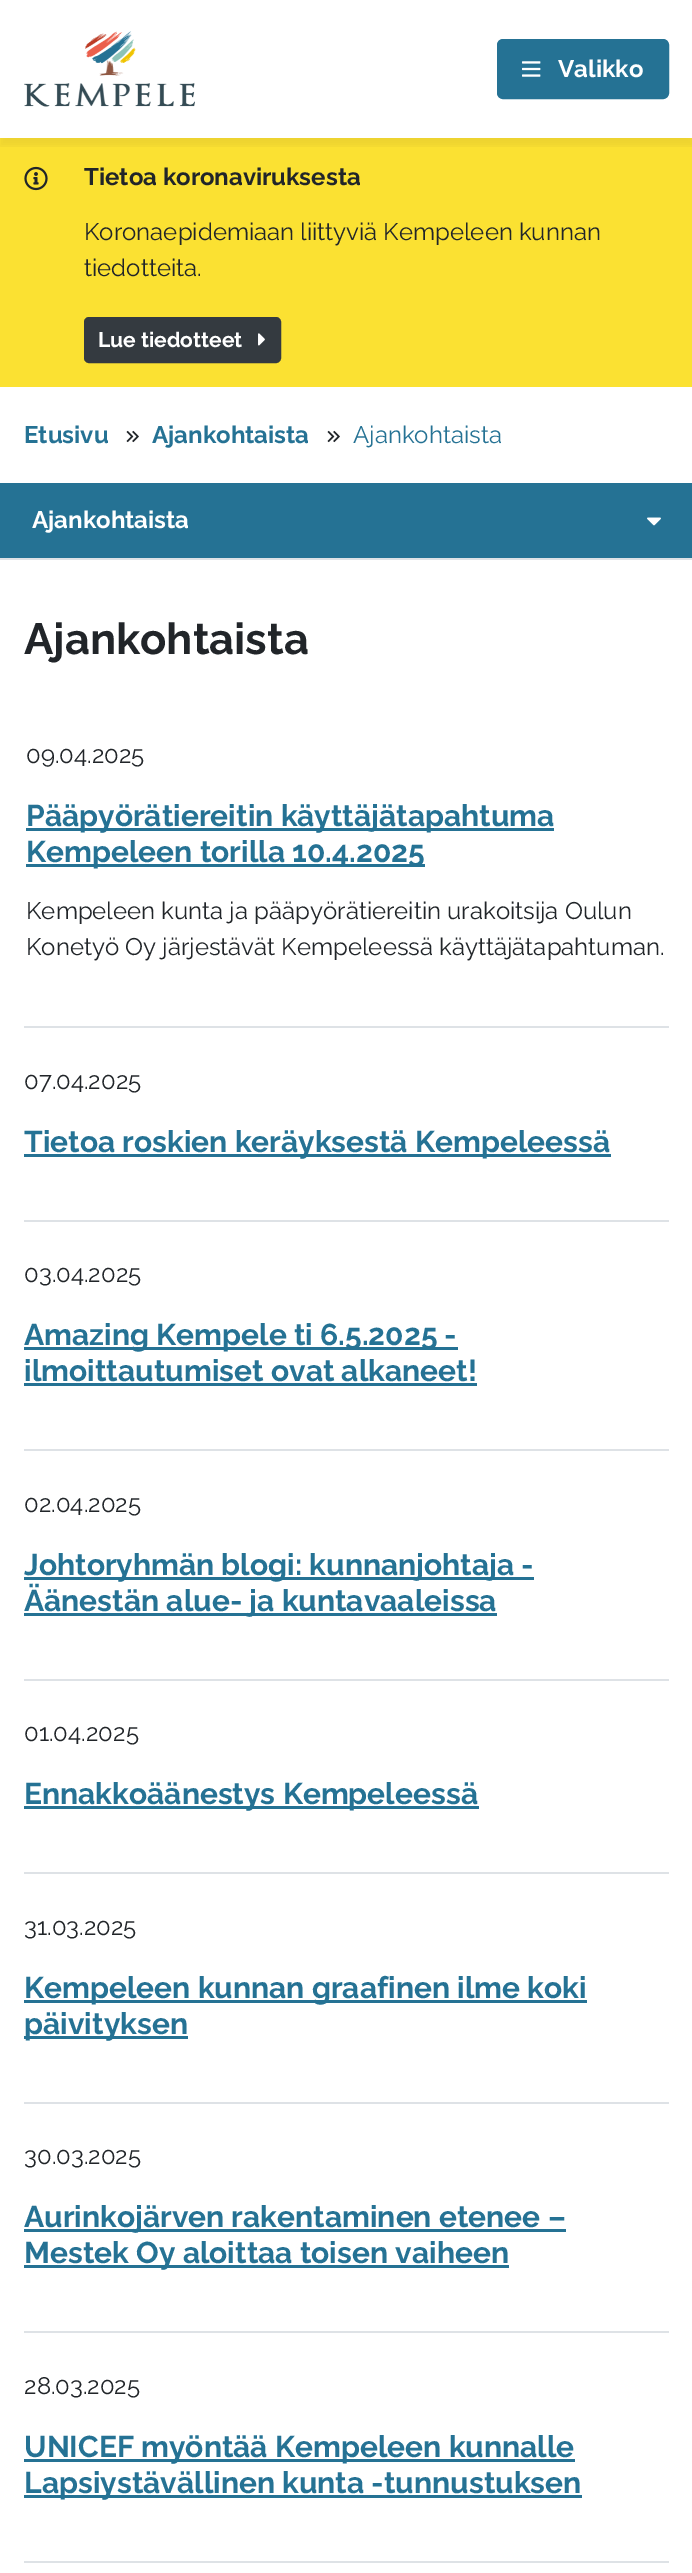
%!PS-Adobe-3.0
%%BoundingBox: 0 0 692 2573
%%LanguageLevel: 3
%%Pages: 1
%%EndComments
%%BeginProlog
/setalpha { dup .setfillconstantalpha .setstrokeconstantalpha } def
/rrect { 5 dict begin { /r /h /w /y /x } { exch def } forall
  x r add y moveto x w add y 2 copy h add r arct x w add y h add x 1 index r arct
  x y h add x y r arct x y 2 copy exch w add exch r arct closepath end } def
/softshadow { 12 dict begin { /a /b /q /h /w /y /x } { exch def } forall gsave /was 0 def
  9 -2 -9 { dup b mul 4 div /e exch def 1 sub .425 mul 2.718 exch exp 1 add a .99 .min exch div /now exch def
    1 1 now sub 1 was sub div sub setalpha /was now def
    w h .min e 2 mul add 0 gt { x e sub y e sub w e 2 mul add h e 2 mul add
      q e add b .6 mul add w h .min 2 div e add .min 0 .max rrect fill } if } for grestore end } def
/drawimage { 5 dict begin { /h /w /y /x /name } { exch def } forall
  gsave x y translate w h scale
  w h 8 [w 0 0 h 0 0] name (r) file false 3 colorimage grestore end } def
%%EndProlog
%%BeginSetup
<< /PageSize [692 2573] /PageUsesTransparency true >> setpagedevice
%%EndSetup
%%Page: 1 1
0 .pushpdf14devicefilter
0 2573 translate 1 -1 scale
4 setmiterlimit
1 setgray
0 0 692 2573 rectfill
0.984 0.882 0.196 setrgbcolor
0 138 692 249 rectfill
gsave
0 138 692 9 rectclip
0 setgray
0 8 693 138 0 4 0.05 softshadow
grestore
(images/1.raw) 24 31 171 76 drawimage
0.145 0.447 0.58 setrgbcolor
498 40 170 58 5 rrect gsave fill grestore
2 setlinewidth
stroke
(images/2.raw) 522 61 19 16 drawimage
(images/3.raw) 24 166 24 25 drawimage
0.204 0.227 0.251 setrgbcolor
85 318 195 44 4 rrect gsave fill grestore
stroke
(images/4.raw) 258 333 7 13 drawimage
(images/5.raw) 126 430 13 13 drawimage
(images/5.raw) 327 430 13 13 drawimage
0.871 0.886 0.902 setrgbcolor
0 558 692 2 rectfill
0.145 0.447 0.58 setrgbcolor
0 483 692 75 rectfill
(images/6.raw) 647 517 14 9 drawimage
0.871 0.886 0.902 setrgbcolor
24 1026 645 2 rectfill
0.145 0.447 0.58 setrgbcolor
26 828 528 3 rectfill
26 864 399 3 rectfill
0.871 0.886 0.902 setrgbcolor
24 1220 645 2 rectfill
0.145 0.447 0.58 setrgbcolor
24 1154 587 3 rectfill
0.871 0.886 0.902 setrgbcolor
24 1449 645 2 rectfill
0.145 0.447 0.58 setrgbcolor
24 1347 434 3 rectfill
24 1383 453 3 rectfill
0.871 0.886 0.902 setrgbcolor
24 1679 645 2 rectfill
0.145 0.447 0.58 setrgbcolor
24 1577 510 3 rectfill
24 1613 473 3 rectfill
0.871 0.886 0.902 setrgbcolor
24 1872 645 2 rectfill
0.145 0.447 0.58 setrgbcolor
24 1806 455 3 rectfill
0.871 0.886 0.902 setrgbcolor
24 2102 645 2 rectfill
0.145 0.447 0.58 setrgbcolor
24 2000 563 3 rectfill
24 2036 164 3 rectfill
0.871 0.886 0.902 setrgbcolor
24 2331 645 2 rectfill
0.145 0.447 0.58 setrgbcolor
24 2229 542 3 rectfill
24 2265 485 3 rectfill
0.871 0.886 0.902 setrgbcolor
24 2561 645 2 rectfill
0.145 0.447 0.58 setrgbcolor
24 2459 551 3 rectfill
24 2495 558 3 rectfill
/Raleway-Bold [24 0 0 -24 0 0] selectfont
1 setgray
558 77 moveto (Valikko) show
0.129 0.145 0.161 setrgbcolor
84 185 moveto (Tietoa koronaviruksesta) show
/Raleway-Regular [24 0 0 -24 0 0] selectfont
84 240 moveto (Koronaepidemiaan liittyviä Kempeleen kunnan) show
84 276 moveto (tiedotteita.) show
/Raleway-Bold [21 0 0 -21 0 0] selectfont
1 setgray
98 347 moveto (Lue tiedotteet) show
/Raleway-Bold [24 0 0 -24 0 0] selectfont
0.145 0.447 0.58 setrgbcolor
24 443 moveto (Etusivu) show
152 443 moveto (Ajankohtaista) show
/Raleway-Regular [24 0 0 -24 0 0] selectfont
353 443 moveto (Ajankohtaista) show
/Raleway-Bold [24 0 0 -24 0 0] selectfont
1 setgray
32 528 moveto (Ajankohtaista) show
/Raleway-Bold [43.5 0 0 -43.5 0 0] selectfont
0.129 0.145 0.161 setrgbcolor
24 654 moveto (Ajankohtaista) show
/Raleway-Regular [24 0 0 -24 0 0] selectfont
26 763 moveto (09.04.2025) show
/Raleway-Bold [30 0 0 -30 0 0] selectfont
0.145 0.447 0.58 setrgbcolor
26 826 moveto (Pääpyörätiereitin käyttäjätapahtuma) show
26 862 moveto (Kempeleen torilla 10.4.2025) show
/Raleway-Regular [24 0 0 -24 0 0] selectfont
0.129 0.145 0.161 setrgbcolor
26 919 moveto (Kempeleen kunta ja pääpyörätiereitin urakoitsija Oulun) show
26 955 moveto (Konetyö Oy järjestävät Kempeleessä käyttäjätapahtuman.) show
24 1089 moveto (07.04.2025) show
/Raleway-Bold [30 0 0 -30 0 0] selectfont
0.145 0.447 0.58 setrgbcolor
24 1152 moveto (Tietoa roskien keräyksestä Kempeleessä) show
/Raleway-Regular [24 0 0 -24 0 0] selectfont
0.129 0.145 0.161 setrgbcolor
24 1282 moveto (03.04.2025) show
/Raleway-Bold [30 0 0 -30 0 0] selectfont
0.145 0.447 0.58 setrgbcolor
24 1345 moveto (Amazing Kempele ti 6.5.2025 -) show
24 1381 moveto (ilmoittautumiset ovat alkaneet!) show
/Raleway-Regular [24 0 0 -24 0 0] selectfont
0.129 0.145 0.161 setrgbcolor
24 1512 moveto (02.04.2025) show
/Raleway-Bold [30 0 0 -30 0 0] selectfont
0.145 0.447 0.58 setrgbcolor
24 1575 moveto (Johtoryhmän blogi: kunnanjohtaja -) show
24 1611 moveto (Äänestän alue- ja kuntavaaleissa) show
/Raleway-Regular [24 0 0 -24 0 0] selectfont
0.129 0.145 0.161 setrgbcolor
24 1741 moveto (01.04.2025) show
/Raleway-Bold [30 0 0 -30 0 0] selectfont
0.145 0.447 0.58 setrgbcolor
24 1804 moveto (Ennakkoäänestys Kempeleessä) show
/Raleway-Regular [24 0 0 -24 0 0] selectfont
0.129 0.145 0.161 setrgbcolor
24 1935 moveto (31.03.2025) show
/Raleway-Bold [30 0 0 -30 0 0] selectfont
0.145 0.447 0.58 setrgbcolor
24 1998 moveto (Kempeleen kunnan graafinen ilme koki) show
24 2034 moveto (päivityksen) show
/Raleway-Regular [24 0 0 -24 0 0] selectfont
0.129 0.145 0.161 setrgbcolor
24 2164 moveto (30.03.2025) show
/Raleway-Bold [30 0 0 -30 0 0] selectfont
0.145 0.447 0.58 setrgbcolor
24 2227 moveto (Aurinkojärven rakentaminen etenee –) show
24 2263 moveto (Mestek Oy aloittaa toisen vaiheen) show
/Raleway-Regular [24 0 0 -24 0 0] selectfont
0.129 0.145 0.161 setrgbcolor
24 2394 moveto (28.03.2025) show
/Raleway-Bold [30 0 0 -30 0 0] selectfont
0.145 0.447 0.58 setrgbcolor
24 2457 moveto (UNICEF myöntää Kempeleen kunnalle) show
24 2493 moveto (Lapsiystävällinen kunta -tunnustuksen) show
.poppdf14devicefilter showpage
%%EOF
